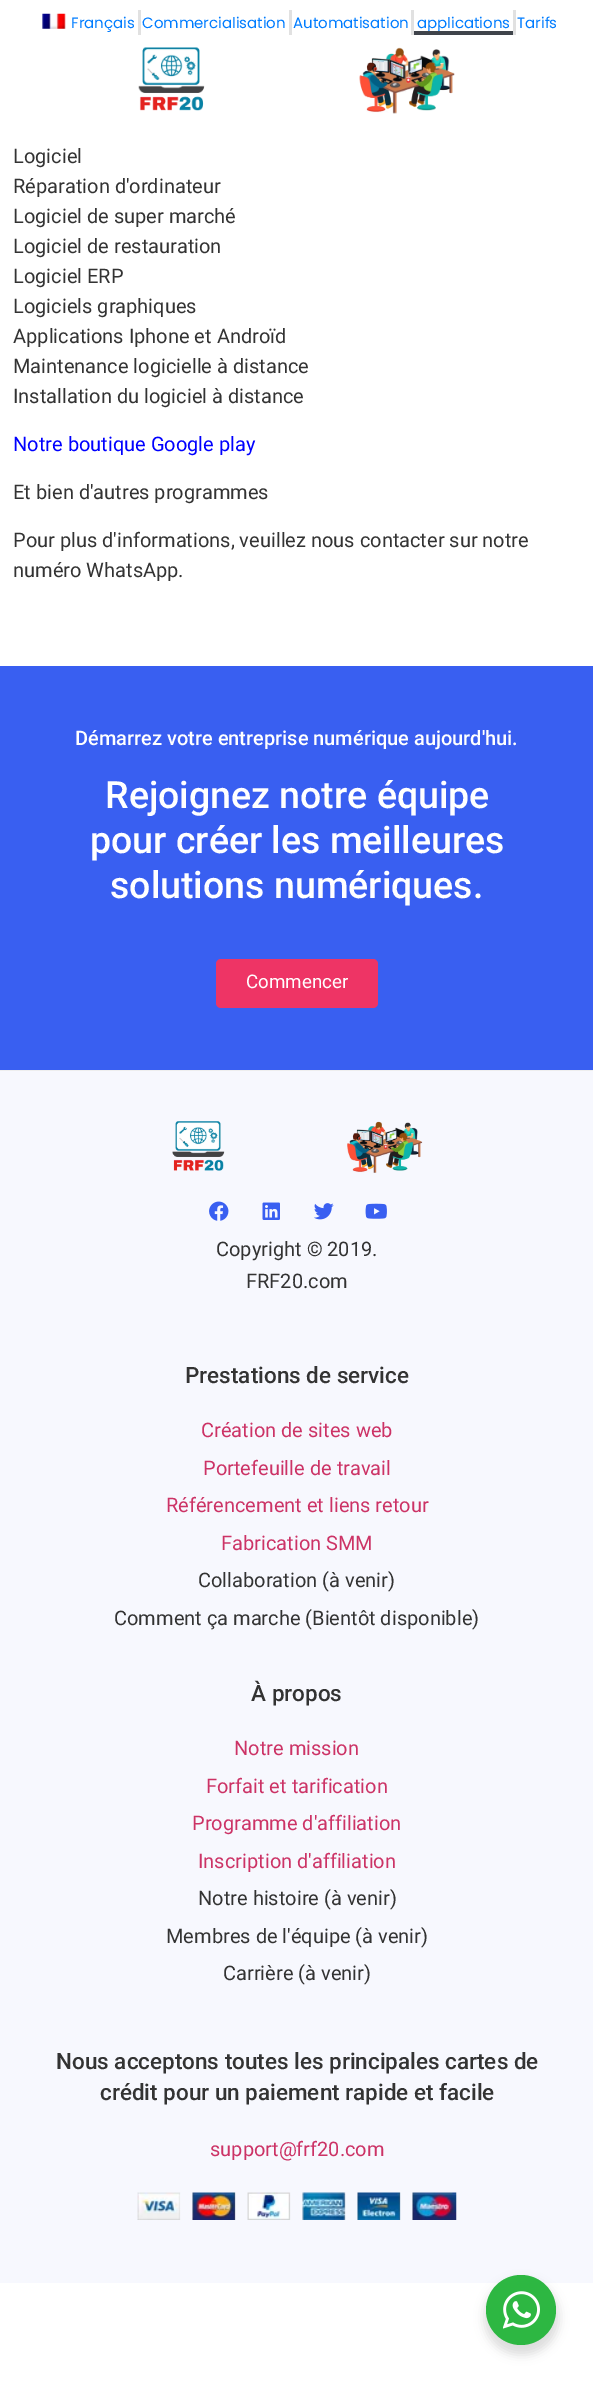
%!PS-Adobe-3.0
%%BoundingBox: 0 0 593 2382
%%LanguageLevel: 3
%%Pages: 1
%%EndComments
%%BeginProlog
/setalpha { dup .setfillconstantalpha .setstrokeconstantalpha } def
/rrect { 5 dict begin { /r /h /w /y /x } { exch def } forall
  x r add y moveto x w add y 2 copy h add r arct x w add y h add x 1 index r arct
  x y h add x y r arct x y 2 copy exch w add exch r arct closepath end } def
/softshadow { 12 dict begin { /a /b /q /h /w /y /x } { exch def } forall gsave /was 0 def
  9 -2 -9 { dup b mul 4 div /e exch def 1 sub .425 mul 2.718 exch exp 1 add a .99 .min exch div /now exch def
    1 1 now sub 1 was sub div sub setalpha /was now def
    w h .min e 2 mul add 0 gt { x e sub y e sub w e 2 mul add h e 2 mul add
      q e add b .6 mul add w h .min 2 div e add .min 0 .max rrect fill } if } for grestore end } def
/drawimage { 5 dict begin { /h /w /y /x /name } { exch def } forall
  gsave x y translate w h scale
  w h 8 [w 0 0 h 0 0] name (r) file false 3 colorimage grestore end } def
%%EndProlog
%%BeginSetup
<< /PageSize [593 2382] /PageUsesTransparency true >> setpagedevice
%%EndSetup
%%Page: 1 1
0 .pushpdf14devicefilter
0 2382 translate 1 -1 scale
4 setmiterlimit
1 setgray
0 0 593 2382 rectfill
(images/1.raw) 42 13 24 16 drawimage
0.882 setgray
138 10 3 25 rectfill
289 10 3 25 rectfill
411 10 3 25 rectfill
513 10 3 25 rectfill
(images/2.raw) 138 47 317 67 drawimage
0.224 0.373 0.945 setrgbcolor
0 666 593 404 rectfill
0.933 0.204 0.396 setrgbcolor
216 959 162 49 5 rrect fill
0.969 0.973 0.996 setrgbcolor
0 1071 593 1212 rectfill
0.933 setgray
0 1070 593 1 rectfill
(images/3.raw) 172 1121 251 52 drawimage
(images/4.raw) 209 1201 20 20 drawimage
(images/5.raw) 262 1202 18 18 drawimage
(images/6.raw) 314 1203 20 17 drawimage
(images/7.raw) 365 1203 22 16 drawimage
(images/8.raw) 137 2192 320 28 drawimage
0 setgray
484 2280 75 75 37.5 5 0.14 softshadow
0.176 0.718 0.259 setrgbcolor
newpath 521 2310 35 0 360 arc closepath fill
(images/9.raw) 503 2291 37 38 drawimage
/Poppins-Regular [15 0 0 -15 0 0] selectfont
0 0.486 1 setrgbcolor
71 28 moveto (Français) show
142 28 moveto (Commercialisation) show
293 28 moveto (Automatisation) show
417 28 moveto (applications) show
0.247 0.267 0.294 setrgbcolor
414 31 99 4 rectfill
0 0.486 1 setrgbcolor
517 28 moveto (Tarifs) show
/Roboto-Regular [20 0 0 -20 0 0] selectfont
0.2 setgray
13 163 moveto (Logiciel) show
13 193 moveto (Réparation d'ordinateur) show
13 223 moveto (Logiciel de super marché) show
13 253 moveto (Logiciel de restauration) show
13 283 moveto (Logiciel ERP) show
13 313 moveto (Logiciels graphiques) show
13 343 moveto (Applications Iphone et Androïd) show
13 373 moveto (Maintenance logicielle à distance) show
13 403 moveto (Installation du logiciel à distance) show
0 0 1 setrgbcolor
13 451 moveto (Notre boutique Google play) show
0.2 setgray
13 499 moveto (Et bien d'autres programmes) show
13 547 moveto (Pour plus d'informations, veuillez nous contacter sur notre) show
13 577 moveto (numéro WhatsApp.) show
/Roboto-Medium [20 0 0 -20 0 0] selectfont
1 setgray
75 745 moveto (Démarrez votre entreprise numérique aujourd'hui.) show
/Roboto-Medium [37.5 0 0 -37.5 0 0] selectfont
105 808 moveto (Rejoignez notre équipe) show
90 853 moveto (pour créer les meilleures) show
110 898 moveto (solutions numériques.) show
/Roboto-Regular [18.75 0 0 -18.75 0 0] selectfont
246 988 moveto (Commencer) show
/Roboto-Regular [20 0 0 -20 0 0] selectfont
0.2 setgray
216 1256 moveto (Copyright © 2019.) show
246 1288 moveto (FRF20.com) show
/Roboto-Medium [22.5 0 0 -22.5 0 0] selectfont
185 1383 moveto (Prestations de service) show
/Roboto-Regular [20 0 0 -20 0 0] selectfont
0.8 0.2 0.4 setrgbcolor
201 1437 moveto (Création de sites web) show
203 1475 moveto (Portefeuille de travail) show
166 1512 moveto (Référencement et liens retour) show
221 1550 moveto (Fabrication SMM) show
0.2 setgray
198 1587 moveto (Collaboration \(à venir\)) show
114 1625 moveto (Comment ça marche \(Bientôt disponible\)) show
/Roboto-Medium [22.5 0 0 -22.5 0 0] selectfont
251 1701 moveto (À propos) show
/Roboto-Regular [20 0 0 -20 0 0] selectfont
0.8 0.2 0.4 setrgbcolor
234 1755 moveto (Notre mission) show
206 1793 moveto (Forfait et tarification) show
192 1830 moveto (Programme d'affiliation) show
198 1868 moveto (Inscription d'affiliation) show
0.2 setgray
198 1905 moveto (Notre histoire \(à venir\)) show
166 1943 moveto (Membres de l'équipe \(à venir\)) show
223 1980 moveto (Carrière \(à venir\)) show
/Roboto-Medium [22.5 0 0 -22.5 0 0] selectfont
56 2069 moveto (Nous acceptons toutes les principales cartes de) show
100 2100 moveto (crédit pour un paiement rapide et facile) show
/Roboto-Regular [20 0 0 -20 0 0] selectfont
0.8 0.2 0.4 setrgbcolor
210 2156 moveto (support@frf20.com) show
.poppdf14devicefilter showpage
%%EOF
